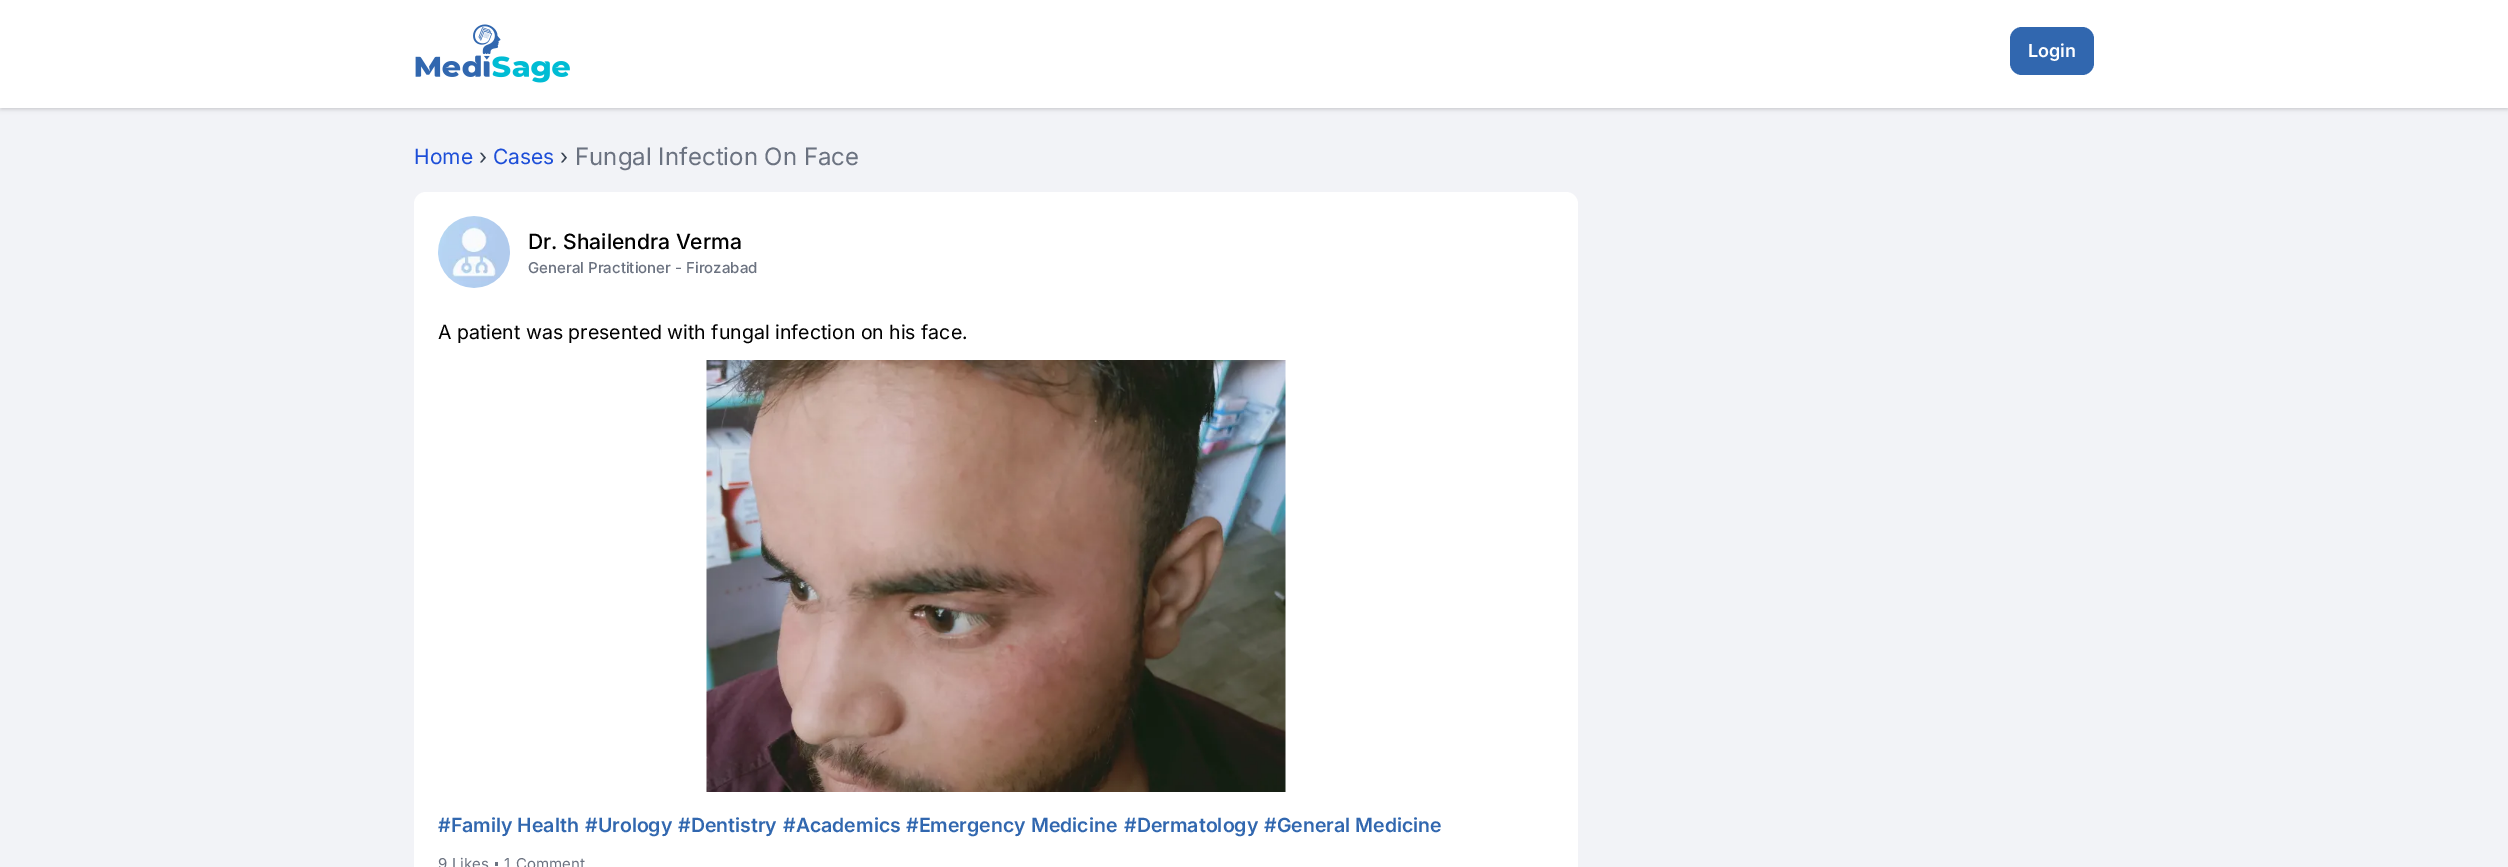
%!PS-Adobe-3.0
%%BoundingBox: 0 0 2508 867
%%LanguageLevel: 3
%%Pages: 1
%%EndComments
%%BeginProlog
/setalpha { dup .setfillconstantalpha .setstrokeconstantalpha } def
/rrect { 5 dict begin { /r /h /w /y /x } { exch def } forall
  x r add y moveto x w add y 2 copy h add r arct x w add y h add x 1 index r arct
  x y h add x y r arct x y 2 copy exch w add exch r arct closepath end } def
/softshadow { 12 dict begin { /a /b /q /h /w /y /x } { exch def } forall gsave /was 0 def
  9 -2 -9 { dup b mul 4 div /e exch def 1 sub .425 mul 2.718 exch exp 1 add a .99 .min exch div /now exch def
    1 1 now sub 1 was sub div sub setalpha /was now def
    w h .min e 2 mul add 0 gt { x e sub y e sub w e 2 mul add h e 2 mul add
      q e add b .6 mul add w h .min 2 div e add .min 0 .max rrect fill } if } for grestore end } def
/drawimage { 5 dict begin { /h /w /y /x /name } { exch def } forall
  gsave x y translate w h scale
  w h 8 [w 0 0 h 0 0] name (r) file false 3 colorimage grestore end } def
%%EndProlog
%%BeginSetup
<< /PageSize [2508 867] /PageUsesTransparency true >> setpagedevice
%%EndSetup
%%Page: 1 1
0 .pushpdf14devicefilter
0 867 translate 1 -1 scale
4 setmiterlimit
0.949 0.953 0.969 setrgbcolor
0 0 2508 867 rectfill
0 setgray
2 3 2505 105 0 1.5 0.1 softshadow
0 2 2508 108 0 2 0.1 softshadow
1 setgray
0 0 2508 108 rectfill
(images/1.raw) 415 24 155 59 drawimage
0.192 0.404 0.686 setrgbcolor
2010 27 84 48 12 rrect fill
1 setgray
414 192 1164 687 12 rrect fill
(images/2.raw) 438 216 72 72 drawimage
(images/3.raw) 706 360 580 432 drawimage
0.42 0.447 0.502 setrgbcolor
495 862 3 4 rectfill
/Inter-SemiBold [18 0 0 -18 0 0] selectfont
1 setgray
2028 57 moveto (Login) show
/Inter-Regular [21 0 0 -21 0 0] selectfont
0.114 0.306 0.847 setrgbcolor
414 164 moveto (Home) show
0.216 0.255 0.318 setrgbcolor
479 164 moveto (›) show
0.114 0.306 0.847 setrgbcolor
493 164 moveto (Cases) show
0.216 0.255 0.318 setrgbcolor
560 164 moveto (›) show
/Inter-Regular [24 0 0 -24 0 0] selectfont
0.42 0.447 0.502 setrgbcolor
575 165 moveto (Fungal Infection On Face) show
/Inter-Medium [21 0 0 -21 0 0] selectfont
0 setgray
528 249 moveto (Dr. Shailendra Verma) show
/Inter-Medium [15 0 0 -15 0 0] selectfont
0.42 0.447 0.502 setrgbcolor
528 273 moveto (General Practitioner - Firozabad) show
/Inter-Regular [19.5 0 0 -19.5 0 0] selectfont
0 setgray
438 339 moveto (A patient was presented with fungal infection on his face.) show
/Inter-SemiBold [19.5 0 0 -19.5 0 0] selectfont
0.192 0.404 0.686 setrgbcolor
438 832 moveto (#Family Health) show
585 832 moveto (#Urology) show
678 832 moveto (#Dentistry) show
783 832 moveto (#Academics) show
906 832 moveto (#Emergency Medicine) show
1124 832 moveto (#Dermatology) show
1264 832 moveto (#General Medicine) show
/Inter-Regular [15 0 0 -15 0 0] selectfont
0.42 0.447 0.502 setrgbcolor
438 869 moveto (9 Likes) show
504 869 moveto (1) show
516 869 moveto (Comment) show
.poppdf14devicefilter showpage
%%EOF
